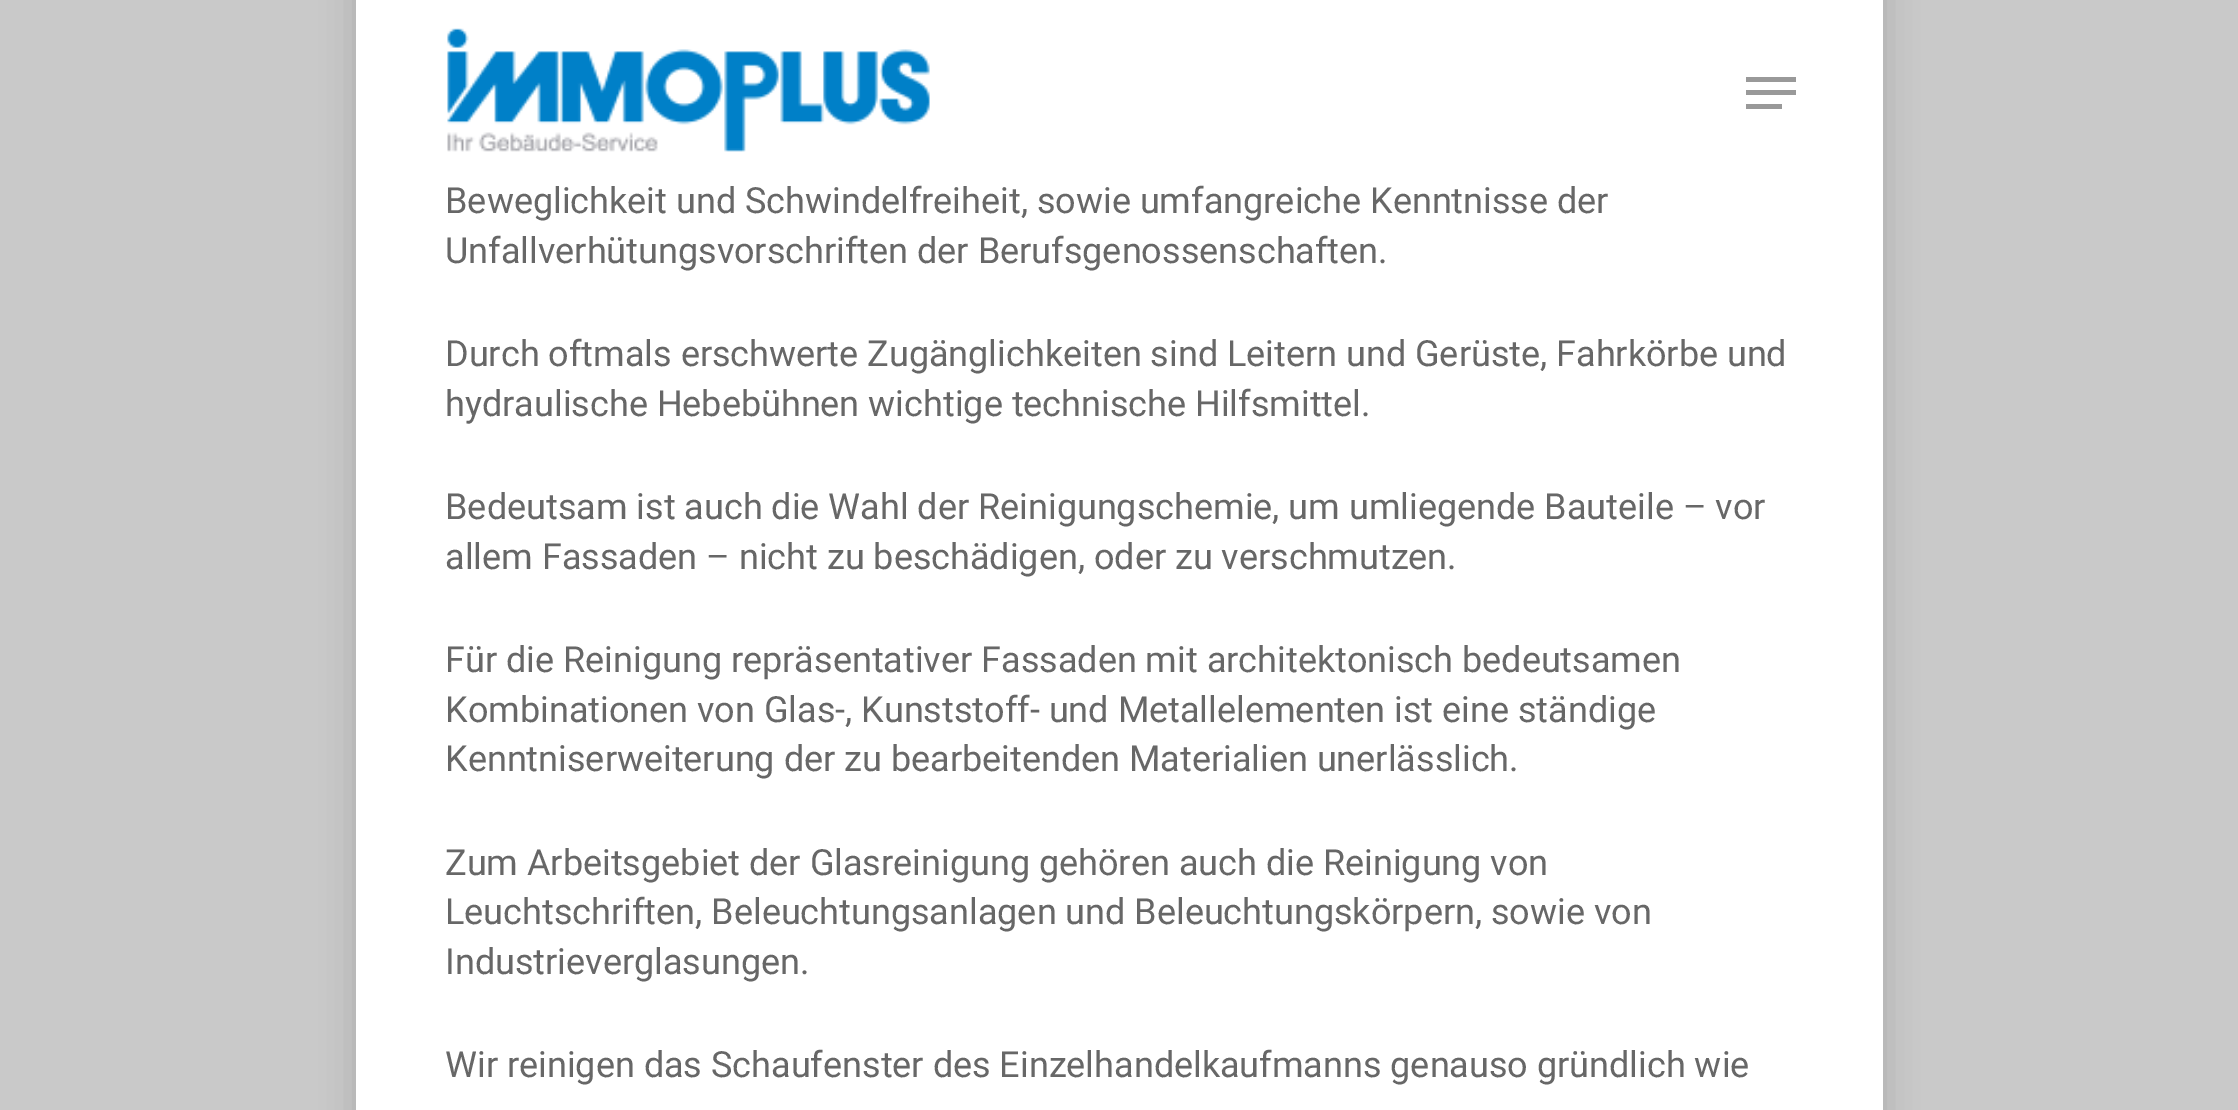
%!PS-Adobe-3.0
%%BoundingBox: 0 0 2238 1110
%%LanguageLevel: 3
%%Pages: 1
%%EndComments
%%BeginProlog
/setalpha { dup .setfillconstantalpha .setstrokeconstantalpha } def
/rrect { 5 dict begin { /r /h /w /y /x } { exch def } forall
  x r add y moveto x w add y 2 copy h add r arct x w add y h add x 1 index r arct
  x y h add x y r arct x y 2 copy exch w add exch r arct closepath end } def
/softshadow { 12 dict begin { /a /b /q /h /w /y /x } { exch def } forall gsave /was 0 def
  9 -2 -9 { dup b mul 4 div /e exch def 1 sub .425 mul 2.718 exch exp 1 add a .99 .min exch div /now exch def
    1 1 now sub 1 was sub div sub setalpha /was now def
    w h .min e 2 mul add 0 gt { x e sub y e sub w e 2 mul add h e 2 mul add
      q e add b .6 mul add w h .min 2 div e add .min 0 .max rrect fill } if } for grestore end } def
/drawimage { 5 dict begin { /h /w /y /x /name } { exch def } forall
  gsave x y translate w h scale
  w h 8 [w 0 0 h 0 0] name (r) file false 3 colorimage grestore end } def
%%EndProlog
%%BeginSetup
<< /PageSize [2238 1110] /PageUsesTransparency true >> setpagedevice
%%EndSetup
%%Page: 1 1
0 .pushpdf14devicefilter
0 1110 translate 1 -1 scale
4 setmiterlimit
0.788 setgray
0 0 2238 1110 rectfill
0 setgray
356 -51 1527 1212 0 17 0.15 softshadow
1 setgray
356 0 1527 1110 rectfill
(images/1.raw) 447 28 483 124 drawimage
0.6 setgray
1746 77 50 5 rectfill
1746 104 36 5 rectfill
1746 90 50 5 rectfill
/Roboto-Regular [36 0 0 -36 0 0] selectfont
0.404 setgray
445 213 moveto (Beweglichkeit und Schwindelfreiheit, sowie umfangreiche Kenntnisse der) show
445 263 moveto (Unfallverhütungsvorschriften der Berufsgenossenschaften.) show
445 366 moveto (Durch oftmals erschwerte Zugänglichkeiten sind Leitern und Gerüste, Fahrkörbe und) show
445 416 moveto (hydraulische Hebebühnen wichtige technische Hilfsmittel.) show
445 519 moveto (Bedeutsam ist auch die Wahl der Reinigungschemie, um umliegende Bauteile – vor) show
445 569 moveto (allem Fassaden – nicht zu beschädigen, oder zu verschmutzen.) show
445 672 moveto (Für die Reinigung repräsentativer Fassaden mit architektonisch bedeutsamen) show
445 722 moveto (Kombinationen von Glas-, Kunststoff- und Metallelementen ist eine ständige) show
445 771 moveto (Kenntniserweiterung der zu bearbeitenden Materialien unerlässlich.) show
445 875 moveto (Zum Arbeitsgebiet der Glasreinigung gehören auch die Reinigung von) show
445 924 moveto (Leuchtschriften, Beleuchtungsanlagen und Beleuchtungskörpern, sowie von) show
445 974 moveto (Industrieverglasungen.) show
445 1077 moveto (Wir reinigen das Schaufenster des Einzelhandelkaufmanns genauso gründlich wie) show
.poppdf14devicefilter showpage
%%EOF
